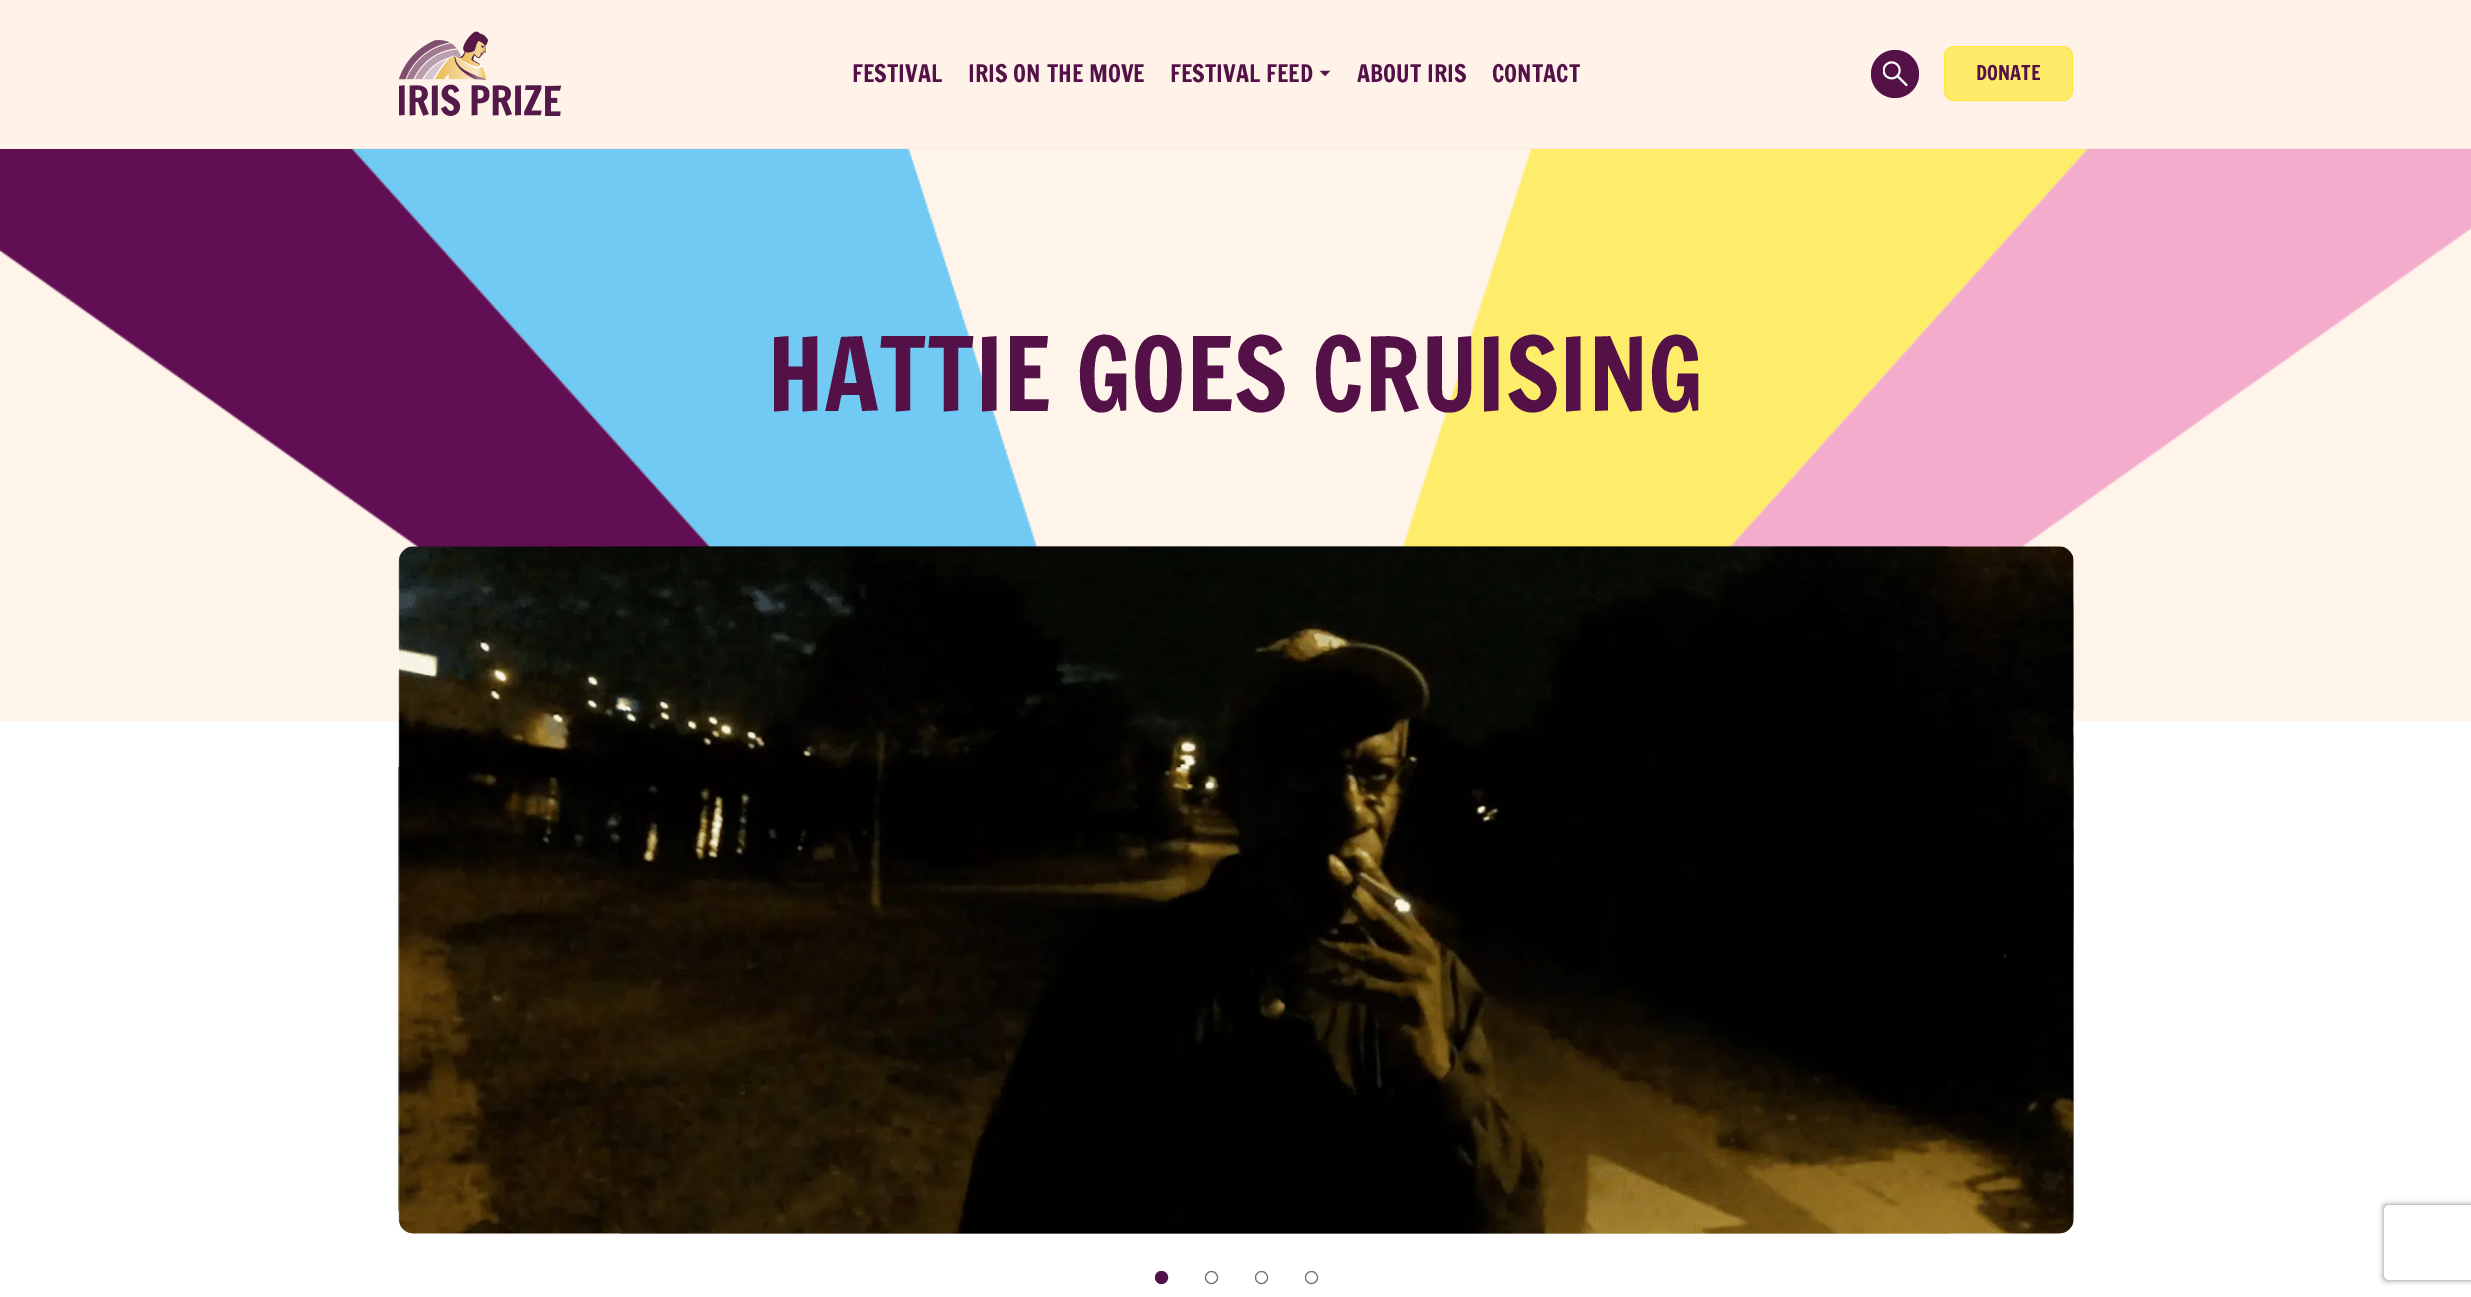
%!PS-Adobe-3.0
%%BoundingBox: 0 0 2471 1297
%%LanguageLevel: 3
%%Pages: 1
%%EndComments
%%BeginProlog
/setalpha { dup .setfillconstantalpha .setstrokeconstantalpha } def
/rrect { 5 dict begin { /r /h /w /y /x } { exch def } forall
  x r add y moveto x w add y 2 copy h add r arct x w add y h add x 1 index r arct
  x y h add x y r arct x y 2 copy exch w add exch r arct closepath end } def
/softshadow { 12 dict begin { /a /b /q /h /w /y /x } { exch def } forall gsave /was 0 def
  9 -2 -9 { dup b mul 4 div /e exch def 1 sub .425 mul 2.718 exch exp 1 add a .99 .min exch div /now exch def
    1 1 now sub 1 was sub div sub setalpha /was now def
    w h .min e 2 mul add 0 gt { x e sub y e sub w e 2 mul add h e 2 mul add
      q e add b .6 mul add w h .min 2 div e add .min 0 .max rrect fill } if } for grestore end } def
/drawimage { 5 dict begin { /h /w /y /x /name } { exch def } forall
  gsave x y translate w h scale
  w h 8 [w 0 0 h 0 0] name (r) file false 3 colorimage grestore end } def
%%EndProlog
%%BeginSetup
<< /PageSize [2471 1297] /PageUsesTransparency true >> setpagedevice
%%EndSetup
%%Page: 1 1
0 .pushpdf14devicefilter
0 1297 translate 1 -1 scale
4 setmiterlimit
1 setgray
0 0 2471 1297 rectfill
1 0.949 0.91 setrgbcolor
0 0 2471 148 rectfill
0.973 0.914 0.886 setrgbcolor
0 148 2471 1 rectfill
(images/1.raw) 399 31 162 85 drawimage
(images/2.raw) 1319 70 12 6 drawimage
0.325 0.067 0.282 setrgbcolor
newpath 1895 74 24 0 360 arc closepath fill
(images/3.raw) 1883 61 25 25 drawimage
1 0.922 0.416 setrgbcolor
1944.5 46.5 128 54 9.5 rrect gsave fill grestore
1 0.902 0.255 setrgbcolor
stroke
(images/4.raw) 0 149 2471 573 drawimage
(images/5.raw) 398 546 1676 688 drawimage
(images/6.raw) 2073 558 1 665 drawimage
0.325 0.067 0.282 setrgbcolor
newpath 1161.5 1277.5 6 0 360 arc closepath gsave fill grestore
stroke
0.439 setgray
newpath 1211.5 1277.5 6 0 360 arc closepath stroke
newpath 1261.5 1277.5 6 0 360 arc closepath stroke
newpath 1311.5 1277.5 6 0 360 arc closepath stroke
gsave
newpath 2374 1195 moveto 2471 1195 lineto 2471 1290 lineto 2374 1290 lineto closepath 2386.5 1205 moveto 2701.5 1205 lineto 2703 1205 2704 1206 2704 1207.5 curveto 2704 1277.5 lineto 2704 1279 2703 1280 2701.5 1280 curveto 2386.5 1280 lineto 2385 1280 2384 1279 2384 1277.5 curveto 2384 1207.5 lineto 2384 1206 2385 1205 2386.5 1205 curveto closepath eoclip newpath
0.502 setgray
2384 1205 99 75 2.5 3 1 softshadow
grestore
/FrancoisOne-Regular [23.75 0 0 -23.75 0 0] selectfont
0.325 0.067 0.282 setrgbcolor
852 82 moveto (FESTIVAL) show
968 82 moveto (IRIS ON THE MOVE) show
1170 82 moveto (FESTIVAL FEED) show
1357 82 moveto (ABOUT IRIS) show
1492 82 moveto (CONTACT) show
/FrancoisOne-Regular [20 0 0 -20 0 0] selectfont
1976 80 moveto (DONATE) show
/FrancoisOne-Regular [100 0 0 -100 0 0] selectfont
767 411 moveto (HATTIE GOES CRUISING) show
.poppdf14devicefilter showpage
%%EOF
